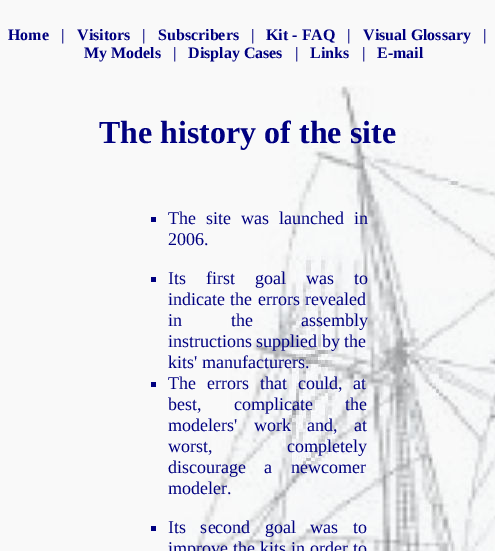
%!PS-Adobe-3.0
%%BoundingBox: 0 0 495 551
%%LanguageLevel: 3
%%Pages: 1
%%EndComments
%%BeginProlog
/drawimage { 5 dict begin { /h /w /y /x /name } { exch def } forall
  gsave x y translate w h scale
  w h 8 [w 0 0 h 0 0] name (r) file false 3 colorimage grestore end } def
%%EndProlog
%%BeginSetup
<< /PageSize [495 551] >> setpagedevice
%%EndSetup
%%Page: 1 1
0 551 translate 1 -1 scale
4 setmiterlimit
1 setgray
0 0 495 551 rectfill
(images/1.raw) 0 0 495 551 drawimage
0 0 0.502 setrgbcolor
151 217 5 5 rectfill
151 277 5 5 rectfill
151 382 5 5 rectfill
151 526 5 5 rectfill
/LiberationSerif-Bold [16 0 0 -16 0 0] selectfont
8 40 moveto (Home) show
61 40 moveto (|) show
77 40 moveto (Visitors) show
142 40 moveto (|) show
158 40 moveto (Subscribers) show
251 40 moveto (|) show
266 40 moveto (Kit - FAQ) show
347 40 moveto (|) show
363 40 moveto (Visual Glossary) show
483 40 moveto (|) show
84 58 moveto (My Models) show
173 58 moveto (|) show
188 58 moveto (Display Cases) show
295 58 moveto (|) show
310 58 moveto (Links) show
362 58 moveto (|) show
377 58 moveto (E-mail) show
/LiberationSerif-Bold [32 0 0 -32 0 0] selectfont
99 143 moveto (The history of the site) show
/LiberationSerif-Regular [18 0 0 -18 0 0] selectfont
168 224 moveto 5.5 0 32 (The site was launched in) widthshow
168 245 moveto (2006.) show
168 284 moveto 15.5 0 32 (Its first goal was to) widthshow
168 305 moveto 1 0 32 (indicate the errors revealed) widthshow
168 326 moveto 44 0 32 (in the assembly) widthshow
168 347 moveto (instructions supplied by the) show
168 368 moveto (kits' manufacturers.) show
168 389 moveto 6.5 0 32 (The errors that could, at) widthshow
168 410 moveto 28 0 32 (best, complicate the) widthshow
168 431 moveto 12 0 32 (modelers' work and, at) widthshow
168 452 moveto 70 0 32 (worst, completely) widthshow
168 473 moveto 14 0 32 (discourage a newcomer) widthshow
168 494 moveto (modeler.) show
168 533 moveto 10 0 32 (Its second goal was to) widthshow
168 554 moveto 0.5 0 32 (improve the kits in order to) widthshow
showpage
%%EOF
